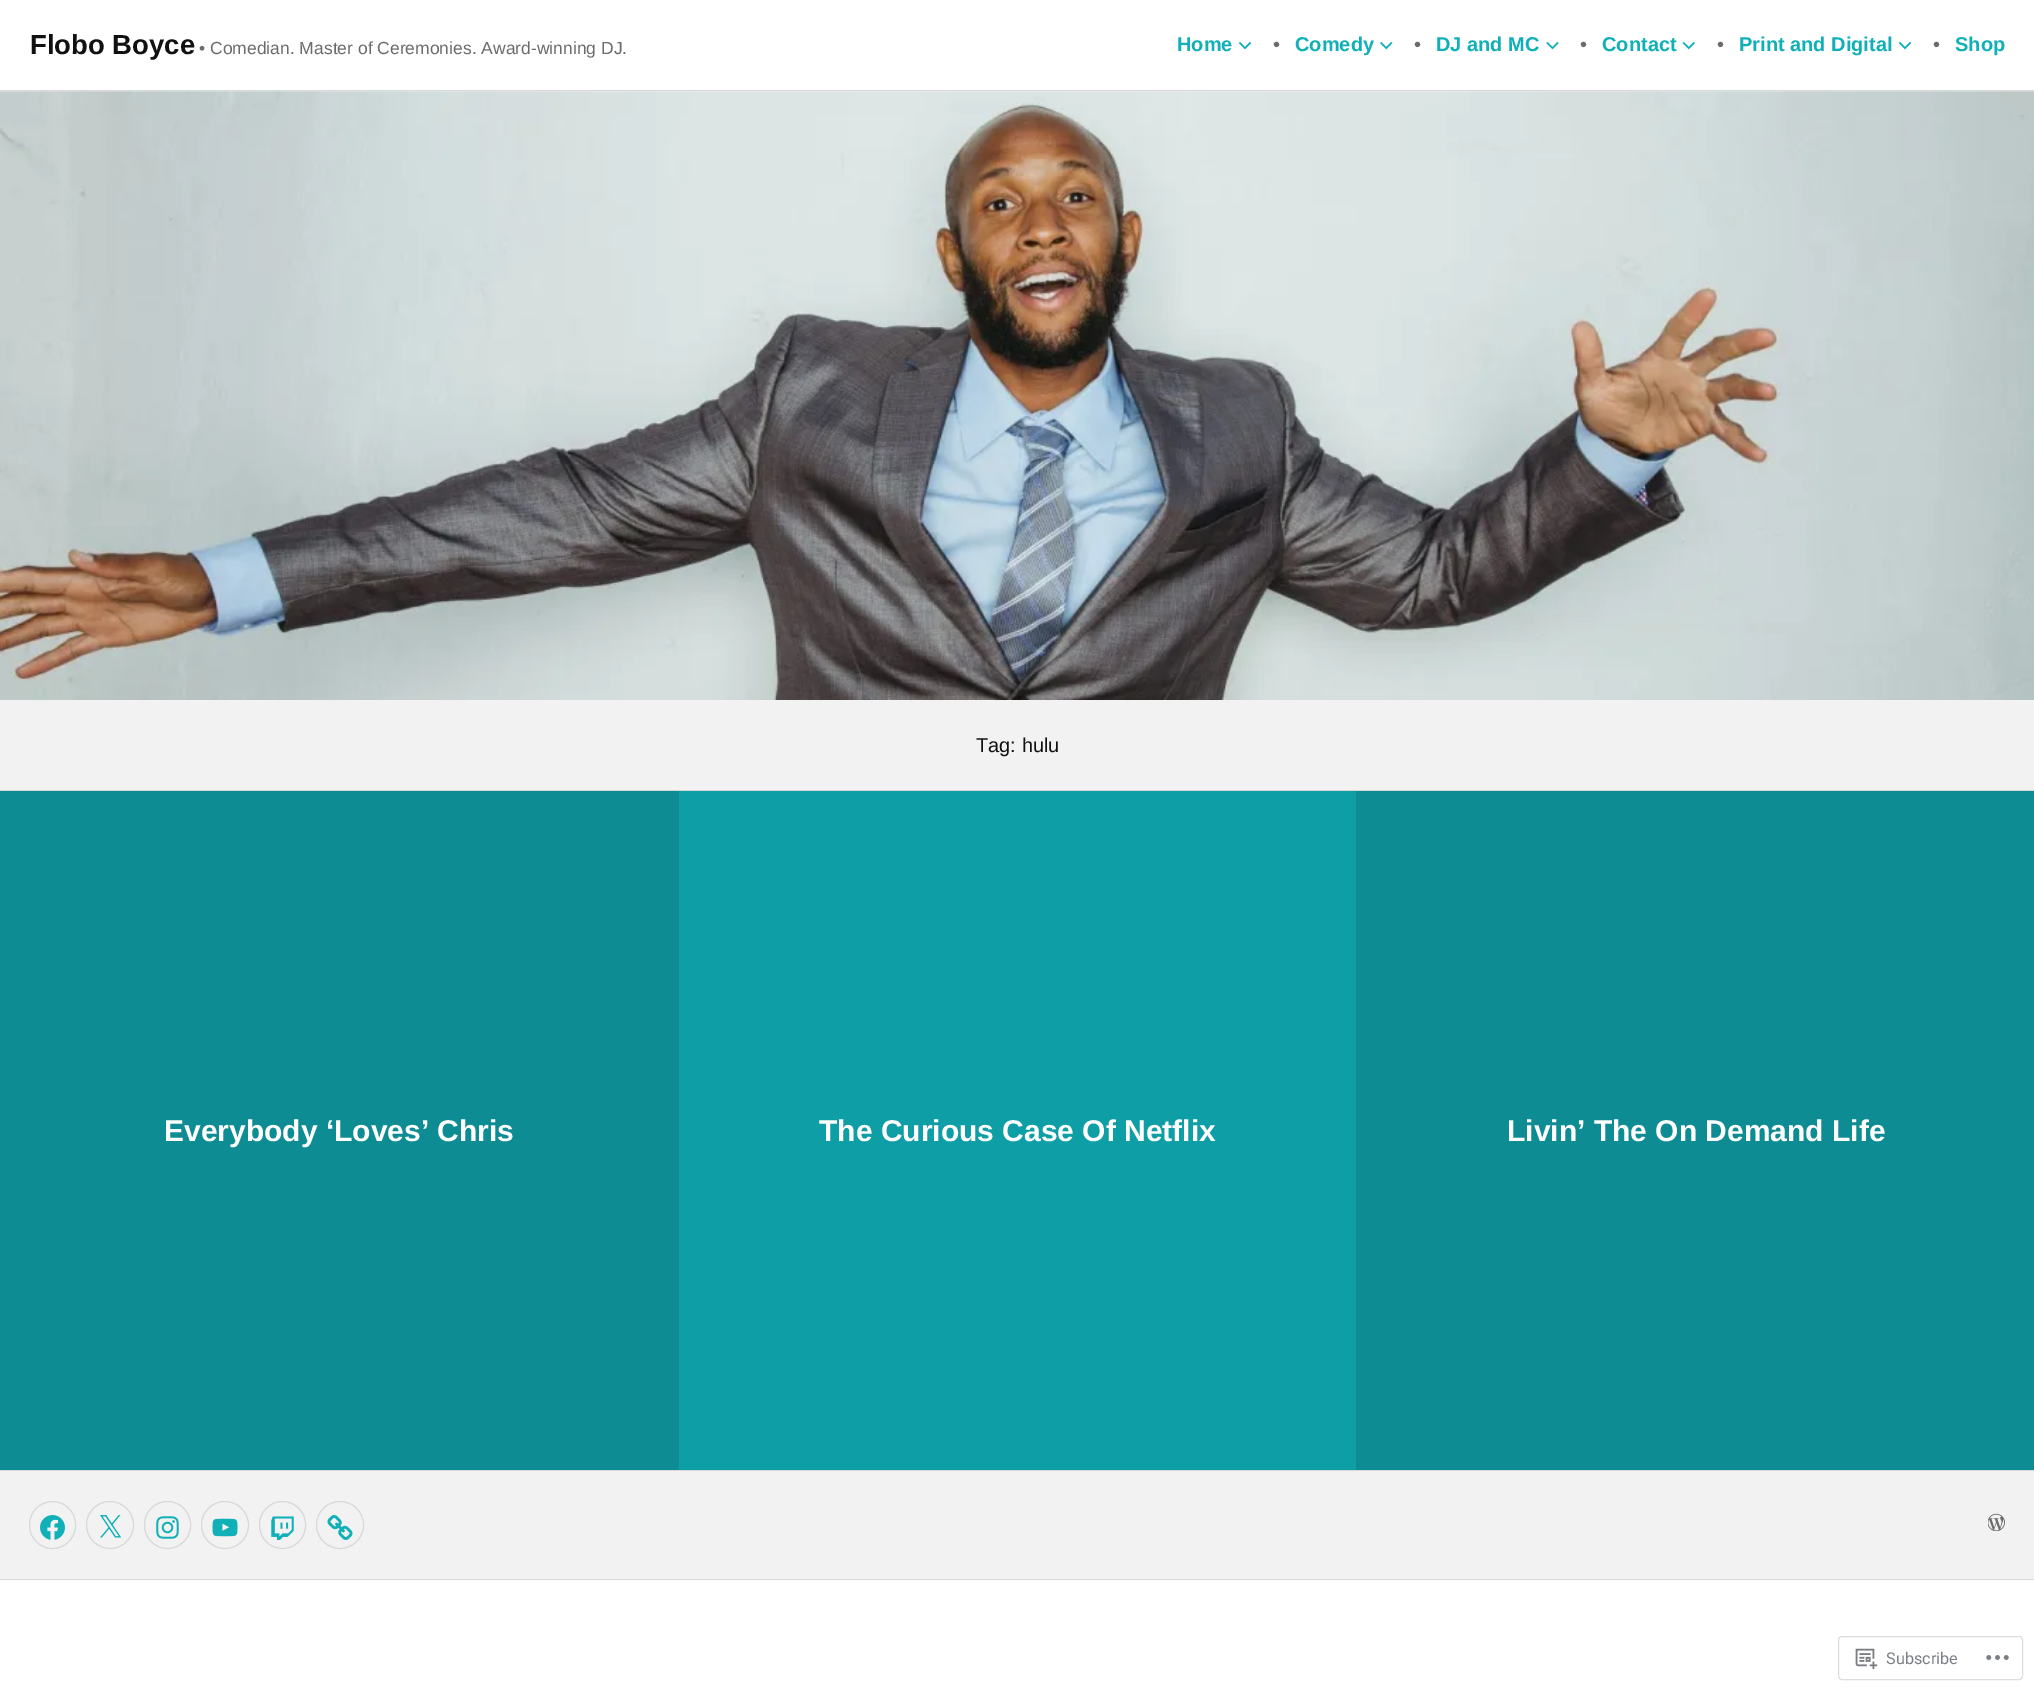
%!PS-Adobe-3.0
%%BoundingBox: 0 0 2034 1692
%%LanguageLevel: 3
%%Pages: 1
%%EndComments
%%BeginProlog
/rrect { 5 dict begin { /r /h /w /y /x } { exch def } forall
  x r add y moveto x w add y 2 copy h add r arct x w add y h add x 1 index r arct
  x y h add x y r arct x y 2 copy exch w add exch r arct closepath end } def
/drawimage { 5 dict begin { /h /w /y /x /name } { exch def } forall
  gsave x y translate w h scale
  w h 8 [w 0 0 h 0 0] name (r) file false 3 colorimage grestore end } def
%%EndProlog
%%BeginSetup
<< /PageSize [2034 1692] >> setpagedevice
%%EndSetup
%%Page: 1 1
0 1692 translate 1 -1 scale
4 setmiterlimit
1 setgray
0 0 2034 1692 rectfill
0.847 setgray
0 90 2034 1 rectfill
(images/1.raw) 1238 41 14 9 drawimage
(images/2.raw) 1380 41 13 9 drawimage
(images/3.raw) 1546 41 13 9 drawimage
(images/4.raw) 1682 41 13 9 drawimage
(images/1.raw) 1898 41 14 9 drawimage
(images/5.raw) 0 91 2034 609 drawimage
0.949 setgray
0 700 2034 90 rectfill
0.847 setgray
0 790 2034 1 rectfill
0.051 0.553 0.576 setrgbcolor
0 791 679 679 rectfill
0.055 0.62 0.647 setrgbcolor
679 791 677 679 rectfill
0.051 0.553 0.576 setrgbcolor
1356 791 678 679 rectfill
0.949 setgray
0 1471 2034 108 rectfill
0.847 setgray
0 1470 2034 1 rectfill
0 1579 2034 1 rectfill
29.5 1501.5 46 47 23 rrect stroke
(images/6.raw) 40 1515 25 25 drawimage
newpath 110 1525 23.5 0 360 arc closepath stroke
(images/7.raw) 100 1515 22 23 drawimage
144.5 1501.5 46 47 23 rrect stroke
(images/8.raw) 156 1516 23 23 drawimage
newpath 225 1525 23.5 0 360 arc closepath stroke
(images/9.raw) 212 1518 26 19 drawimage
259.5 1501.5 46 47 23 rrect stroke
(images/10.raw) 271 1516 23 24 drawimage
newpath 340 1525 23.5 0 360 arc closepath stroke
(images/11.raw) 327 1515 26 25 drawimage
(images/12.raw) 1988 1513 17 18 drawimage
0.867 0.867 0.875 setrgbcolor
1838.5 1636.5 184 43 3.5 rrect stroke
(images/13.raw) 1855 1648 23 22 drawimage
(images/14.raw) 1986 1655 23 5 drawimage
/Arimo-Bold [27.5 0 0 -27.5 0 0] selectfont
0.067 setgray
30 54 moveto (Flobo Boyce) show
/Arimo-Regular [17.5 0 0 -17.5 0 0] selectfont
0.42 setgray
199 54 moveto (•) show
210 54 moveto (Comedian. Master of Ceremonies. Award-winning DJ.) show
/Arimo-Bold [20 0 0 -20 0 0] selectfont
0.063 0.69 0.722 setrgbcolor
1177 51 moveto (Home) show
/Arimo-Regular [20 0 0 -20 0 0] selectfont
0.42 setgray
1273 51 moveto (•) show
/Arimo-Bold [20 0 0 -20 0 0] selectfont
0.063 0.69 0.722 setrgbcolor
1295 51 moveto (Comedy) show
/Arimo-Regular [20 0 0 -20 0 0] selectfont
0.42 setgray
1414 51 moveto (•) show
/Arimo-Bold [20 0 0 -20 0 0] selectfont
0.063 0.69 0.722 setrgbcolor
1436 51 moveto (DJ and MC) show
/Arimo-Regular [20 0 0 -20 0 0] selectfont
0.42 setgray
1580 51 moveto (•) show
/Arimo-Bold [20 0 0 -20 0 0] selectfont
0.063 0.69 0.722 setrgbcolor
1602 51 moveto (Contact) show
/Arimo-Regular [20 0 0 -20 0 0] selectfont
0.42 setgray
1717 51 moveto (•) show
/Arimo-Bold [20 0 0 -20 0 0] selectfont
0.063 0.69 0.722 setrgbcolor
1739 51 moveto (Print and Digital) show
/Arimo-Regular [20 0 0 -20 0 0] selectfont
0.42 setgray
1933 51 moveto (•) show
/Arimo-Bold [20 0 0 -20 0 0] selectfont
0.063 0.69 0.722 setrgbcolor
1955 51 moveto (Shop) show
/Arimo-Regular [20 0 0 -20 0 0] selectfont
0.067 setgray
976 752 moveto (Tag: hulu) show
/Arimo-Bold [30 0 0 -30 0 0] selectfont
1 setgray
164 1141 moveto (Everybody ‘Loves’ Chris) show
819 1141 moveto (The Curious Case Of Netflix) show
1507 1141 moveto (Livin’ The On Demand Life) show
/Roboto-Regular [16.25 0 0 -16.25 0 0] selectfont
0.482 0.498 0.522 setrgbcolor
1886 1664 moveto (Subscribe) show
showpage
%%EOF
